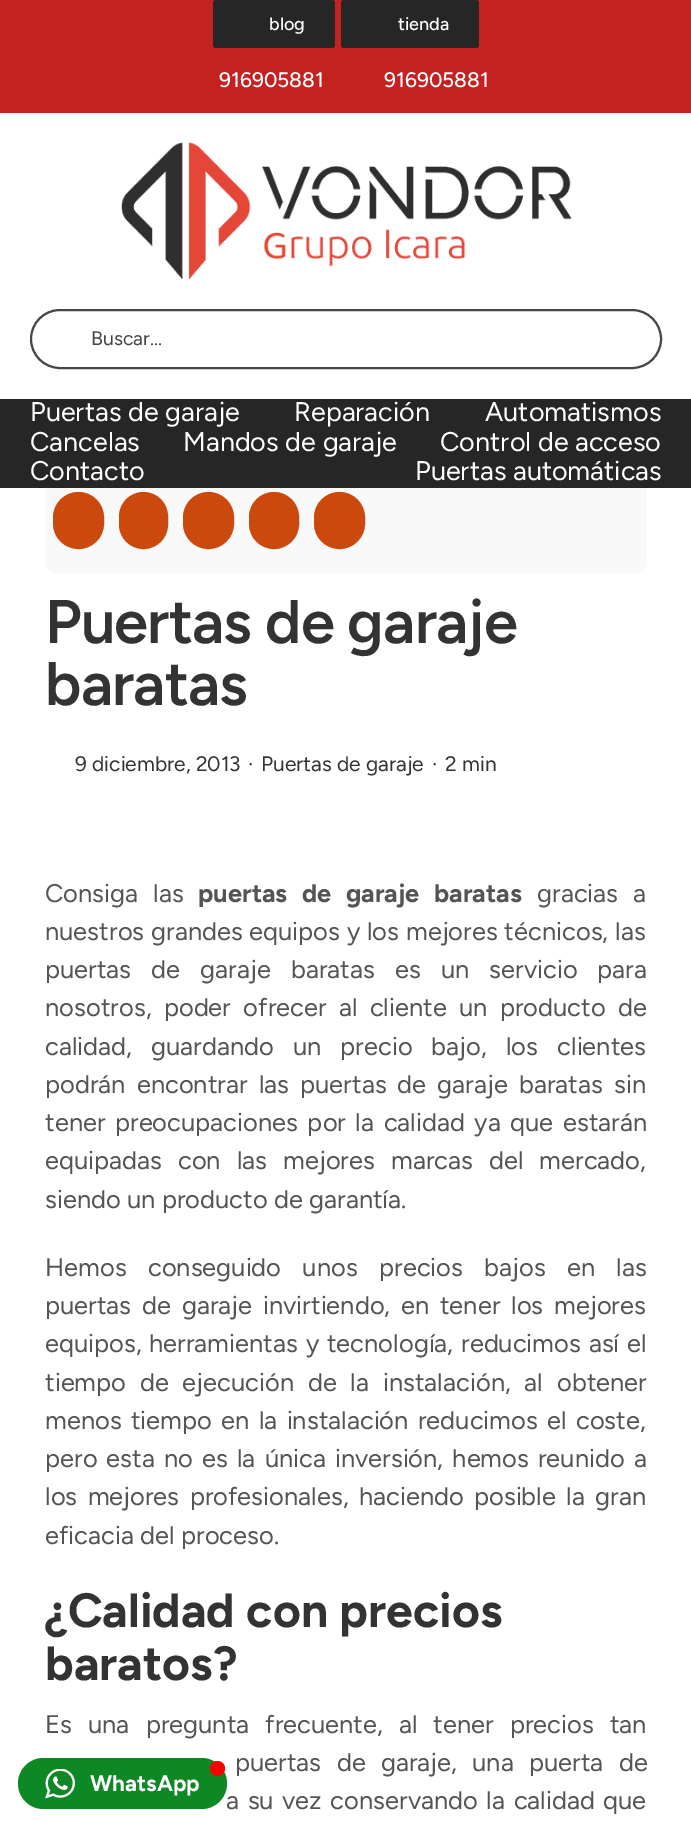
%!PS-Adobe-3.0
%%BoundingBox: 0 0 691 1829
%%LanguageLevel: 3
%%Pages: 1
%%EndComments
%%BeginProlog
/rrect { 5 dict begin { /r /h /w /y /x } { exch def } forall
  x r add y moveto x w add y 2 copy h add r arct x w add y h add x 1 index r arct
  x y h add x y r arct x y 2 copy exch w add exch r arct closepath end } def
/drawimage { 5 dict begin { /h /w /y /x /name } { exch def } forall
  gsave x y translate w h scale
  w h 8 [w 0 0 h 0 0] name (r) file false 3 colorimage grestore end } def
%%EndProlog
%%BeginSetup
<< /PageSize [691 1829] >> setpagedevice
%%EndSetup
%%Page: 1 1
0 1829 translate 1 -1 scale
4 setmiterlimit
1 setgray
0 0 691 1829 rectfill
0.769 0.129 0.129 setrgbcolor
0 0 691 113 rectfill
0.149 setgray
213 0 122 48 3 rrect fill
341 0 138 48 3 rrect fill
(images/1.raw) 121 142 451 137 drawimage
0.278 0.275 0.275 setrgbcolor
2 setlinewidth
31 310 630 58 29 rrect stroke
0.976 setgray
45 468 602 105 12 rrect fill
0.149 setgray
0 399 691 89 rectfill
0.796 0.286 0.051 setrgbcolor
54 493 49 55 24.5 rrect gsave fill grestore
stroke
120 493 47 55 23.5 rrect gsave fill grestore
stroke
184 493 49 55 24.5 rrect gsave fill grestore
stroke
250 493 48 55 24 rrect gsave fill grestore
stroke
315 493 49 55 24.5 rrect gsave fill grestore
stroke
0.055 0.533 0.141 setrgbcolor
18 1758 209 51 25.5 rrect fill
(images/2.raw) 45 1769 30 30 drawimage
1 0 0 setrgbcolor
newpath 217.5 1768.5 7.5 0 360 arc closepath fill
/Figtree-Medium [18 0 0 -18 0 0] selectfont
1 setgray
269 30 moveto (blog) show
398 30 moveto (tienda) show
/Figtree-Medium [21 0 0 -21 0 0] selectfont
219 87 moveto (916905881) show
384 87 moveto (916905881) show
/Figtree-Regular [19.5 0 0 -19.5 0 0] selectfont
0.278 0.275 0.275 setrgbcolor
91 345 moveto (Buscar...) show
/Figtree-Regular [27 0 0 -27 0 0] selectfont
1 setgray
30 421 moveto (Puertas de garaje) show
294 421 moveto (Reparación) show
485 421 moveto (Automatismos) show
30 451 moveto (Cancelas) show
183 451 moveto (Mandos de garaje) show
440 451 moveto (Control de acceso) show
30 480 moveto (Contacto) show
415 480 moveto (Puertas automáticas) show
/Figtree-SemiBold [61.5 0 0 -61.5 0 0] selectfont
0.2 setgray
45 643 moveto -0.9 0 (Puertas de garaje) ashow
45 705 moveto -0.9 0 (baratas) ashow
/Figtree-Regular [21 0 0 -21 0 0] selectfont
75 771 moveto (9 diciembre, 2013) show
248 771 moveto (·) show
261 771 moveto (Puertas de garaje) show
432 771 moveto (·) show
445 771 moveto (2 min) show
/Figtree-Regular [25.5 0 0 -25.5 0 0] selectfont
0.329 setgray
45 902 moveto 8.5 0 32 (Consiga las) widthshow
/Figtree-Bold [25.5 0 0 -25.5 0 0] selectfont
198 902 moveto 8.5 0 32 (puertas de garaje baratas) widthshow
/Figtree-Regular [25.5 0 0 -25.5 0 0] selectfont
537 902 moveto 8.5 0 32 (gracias a) widthshow
45 940 moveto 0.5 0 32 (nuestros grandes equipos y los mejores técnicos, las) widthshow
45 978 moveto 13.75 0 32 (puertas de garaje baratas es un servicio para) widthshow
45 1016 moveto 6 0 32 (nosotros, poder ofrecer al cliente un producto de) widthshow
45 1055 moveto 12.75 0 32 (calidad, guardando un precio bajo, los clientes) widthshow
45 1093 moveto 4.75 0 32 (podrán encontrar las puertas de garaje baratas sin) widthshow
45 1131 moveto 3.25 0 32 (tener preocupaciones por la calidad ya que estarán) widthshow
45 1169 moveto 9.75 0 32 (equipadas con las mejores marcas del mercado,) widthshow
45 1208 moveto (siendo un producto de garantía.) show
45 1276 moveto 15 0 32 (Hemos conseguido unos precios bajos en las) widthshow
45 1314 moveto 4.5 0 32 (puertas de garaje invirtiendo, en tener los mejores) widthshow
45 1352 moveto 1.5 0 32 (equipos, herramientas y tecnología, reducimos así el) widthshow
45 1391 moveto 7.5 0 32 (tiempo de ejecución de la instalación, al obtener) widthshow
45 1429 moveto 3 0 32 (menos tiempo en la instalación reducimos el coste,) widthshow
45 1467 moveto 2.75 0 32 (pero esta no es la única inversión, hemos reunido a) widthshow
45 1505 moveto 4 0 32 (los mejores profesionales, haciendo posible la gran) widthshow
45 1544 moveto (eficacia del proceso.) show
/Figtree-Bold [48 0 0 -48 0 0] selectfont
0.2 setgray
45 1627 moveto (¿Calidad con precios) show
45 1680 moveto (baratos?) show
/Figtree-Regular [25.5 0 0 -25.5 0 0] selectfont
0.329 setgray
45 1733 moveto 9.75 0 32 (Es una pregunta frecuente, al tener precios tan) widthshow
235 1771 moveto 9 0 32 (puertas de garaje, una puerta de) widthshow
226 1809 moveto 2.25 0 32 (a su vez conservando la calidad que) widthshow
/Figtree-Bold [22.5 0 0 -22.5 0 0] selectfont
1 setgray
90 1791 moveto (WhatsApp) show
showpage
%%EOF
